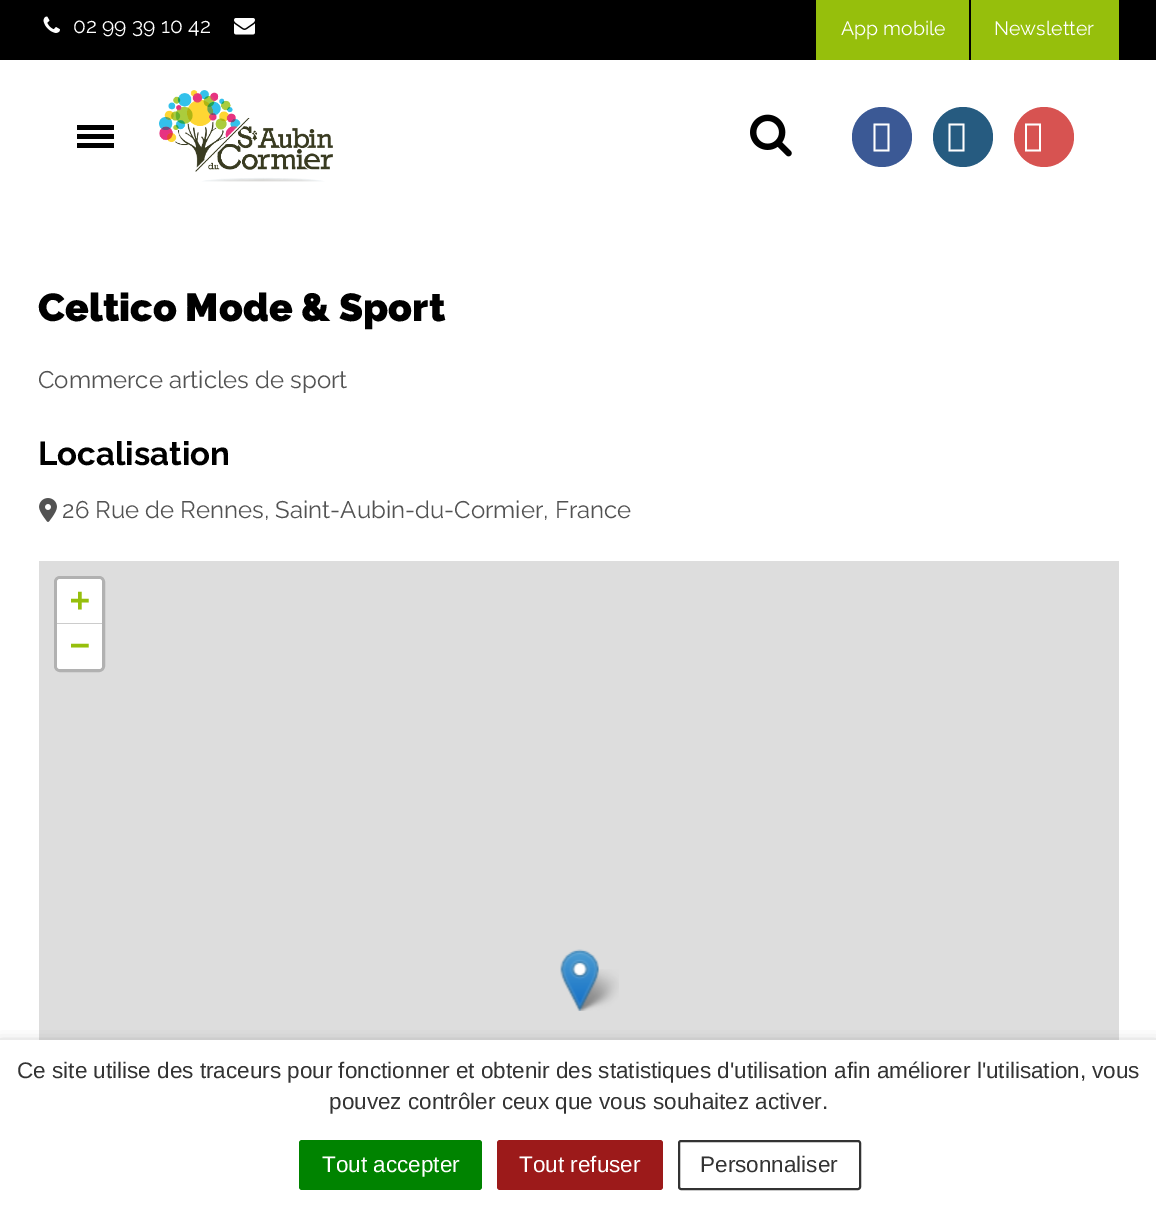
%!PS-Adobe-3.0
%%BoundingBox: 0 0 1156 1211
%%LanguageLevel: 3
%%Pages: 1
%%EndComments
%%BeginProlog
/setalpha { dup .setfillconstantalpha .setstrokeconstantalpha } def
/rrect { 5 dict begin { /r /h /w /y /x } { exch def } forall
  x r add y moveto x w add y 2 copy h add r arct x w add y h add x 1 index r arct
  x y h add x y r arct x y 2 copy exch w add exch r arct closepath end } def
/softshadow { 12 dict begin { /a /b /q /h /w /y /x } { exch def } forall gsave /was 0 def
  9 -2 -9 { dup b mul 4 div /e exch def 1 sub .425 mul 2.718 exch exp 1 add a .99 .min exch div /now exch def
    1 1 now sub 1 was sub div sub setalpha /was now def
    w h .min e 2 mul add 0 gt { x e sub y e sub w e 2 mul add h e 2 mul add
      q e add b .6 mul add w h .min 2 div e add .min 0 .max rrect fill } if } for grestore end } def
/drawimage { 5 dict begin { /h /w /y /x /name } { exch def } forall
  gsave x y translate w h scale
  w h 8 [w 0 0 h 0 0] name (r) file false 3 colorimage grestore end } def
%%EndProlog
%%BeginSetup
<< /PageSize [1156 1211] /PageUsesTransparency true >> setpagedevice
%%EndSetup
%%Page: 1 1
0 .pushpdf14devicefilter
0 1211 translate 1 -1 scale
4 setmiterlimit
1 setgray
0 0 1156 1211 rectfill
0 setgray
0 0 1156 60 rectfill
(images/1.raw) 43 16 17 17 drawimage
(images/2.raw) 234 18 21 17 drawimage
0.588 0.749 0.047 setrgbcolor
816 0 153 60 rectfill
971 0 148 60 rectfill
0 setgray
77 125 37 5 rectfill
77 134 37 5 rectfill
77 143 37 5 rectfill
(images/3.raw) 159 90 174 92 drawimage
(images/4.raw) 750 114 42 43 drawimage
0.231 0.349 0.584 setrgbcolor
newpath 882 137 30 0 360 arc closepath fill
1 setgray
newpath 873.5 151.5 moveto 873.5 123.5 lineto 889.5 123.5 lineto 889.5 151.5 lineto closepath 875.5 149.5 moveto 887.5 149.5 lineto 887.5 125.5 lineto 875.5 125.5 lineto closepath fill
0.149 0.357 0.502 setrgbcolor
newpath 963 137 30 0 360 arc closepath fill
1 setgray
newpath 948.5 151.5 moveto 948.5 123.5 lineto 964.5 123.5 lineto 964.5 151.5 lineto closepath 950.5 149.5 moveto 962.5 149.5 lineto 962.5 125.5 lineto 950.5 125.5 lineto closepath fill
0.843 0.325 0.318 setrgbcolor
newpath 1044 137 30 0 360 arc closepath fill
1 setgray
newpath 1025 151.5 moveto 1025 123.5 lineto 1041 123.5 lineto 1041 151.5 lineto closepath 1027 149.5 moveto 1039 149.5 lineto 1039 125.5 lineto 1027 125.5 lineto closepath fill
(images/5.raw) 39 498 18 24 drawimage
0.867 setgray
39 561 1080 479 rectfill
0.694 setgray
3 setlinewidth
55.5 577.5 48 93 4.5 rrect stroke
1 setgray
newpath 60 579 moveto 99 579 lineto 100.5 579 102 580.5 102 582 curveto 102 624 lineto 57 624 lineto 57 582 lineto 57 580.5 58.5 579 60 579 curveto closepath fill
0.8 setgray
57 623 45 1 rectfill
1 setgray
newpath 57 624 moveto 102 624 lineto 102 666 lineto 102 667.5 100.5 669 99 669 curveto 60 669 lineto 58.5 669 57 667.5 57 666 curveto closepath fill
(images/7.raw) 575 969 44 42 drawimage
(images/6.raw) 560 949 39 62 drawimage
0 setgray
0 1047 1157 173 0 7.5 0.5 softshadow
1 setgray
0 1040 1156 171 rectfill
0 0.514 0 setrgbcolor
299 1140 183 50 3 rrect fill
0.612 0.102 0.102 setrgbcolor
497 1140 166 50 3 rrect fill
0.2 setgray
2 setlinewidth
679 1141 181 48 2 rrect stroke
/Raleway-Regular [21 0 0 -21 0 0] selectfont
1 setgray
73 33 moveto (02 99 39 10 42) show
/Raleway-Regular [19.5 0 0 -19.5 0 0] selectfont
841 35 moveto (App mobile) show
994 35 moveto (Newsletter) show
/Raleway-Black [39 0 0 -39 0 0] selectfont
0 setgray
38 321 moveto (Celtico Mode & Sport) show
/Raleway-Regular [24 0 0 -24 0 0] selectfont
0.322 setgray
38 388 moveto (Commerce articles de sport) show
/Raleway-Bold [33 0 0 -33 0 0] selectfont
0 setgray
38 465 moveto (Localisation) show
/Raleway-Regular [24 0 0 -24 0 0] selectfont
0.322 setgray
62 518 moveto (26 Rue de Rennes, Saint-Aubin-du-Cormier, France) show
/DejaVuSansMono-Bold [33 0 0 -33 0 0] selectfont
0.588 0.749 0.047 setrgbcolor
70 611 moveto (+) show
70 656 moveto (−) show
/LiberationSans-Regular [22.5 0 0 -22.5 0 0] selectfont
0.2 setgray
17 1078 moveto (Ce site utilise des traceurs pour fonctionner et obtenir des statistiques d'utilisation afin améliorer l'utilisation, vous) show
329 1109 moveto (pouvez contrôler ceux que vous souhaitez activer.) show
1 setgray
322 1172 moveto (Tout accepter) show
519 1172 moveto (Tout refuser) show
0.2 setgray
700 1172 moveto (Personnaliser) show
.poppdf14devicefilter showpage
%%EOF
